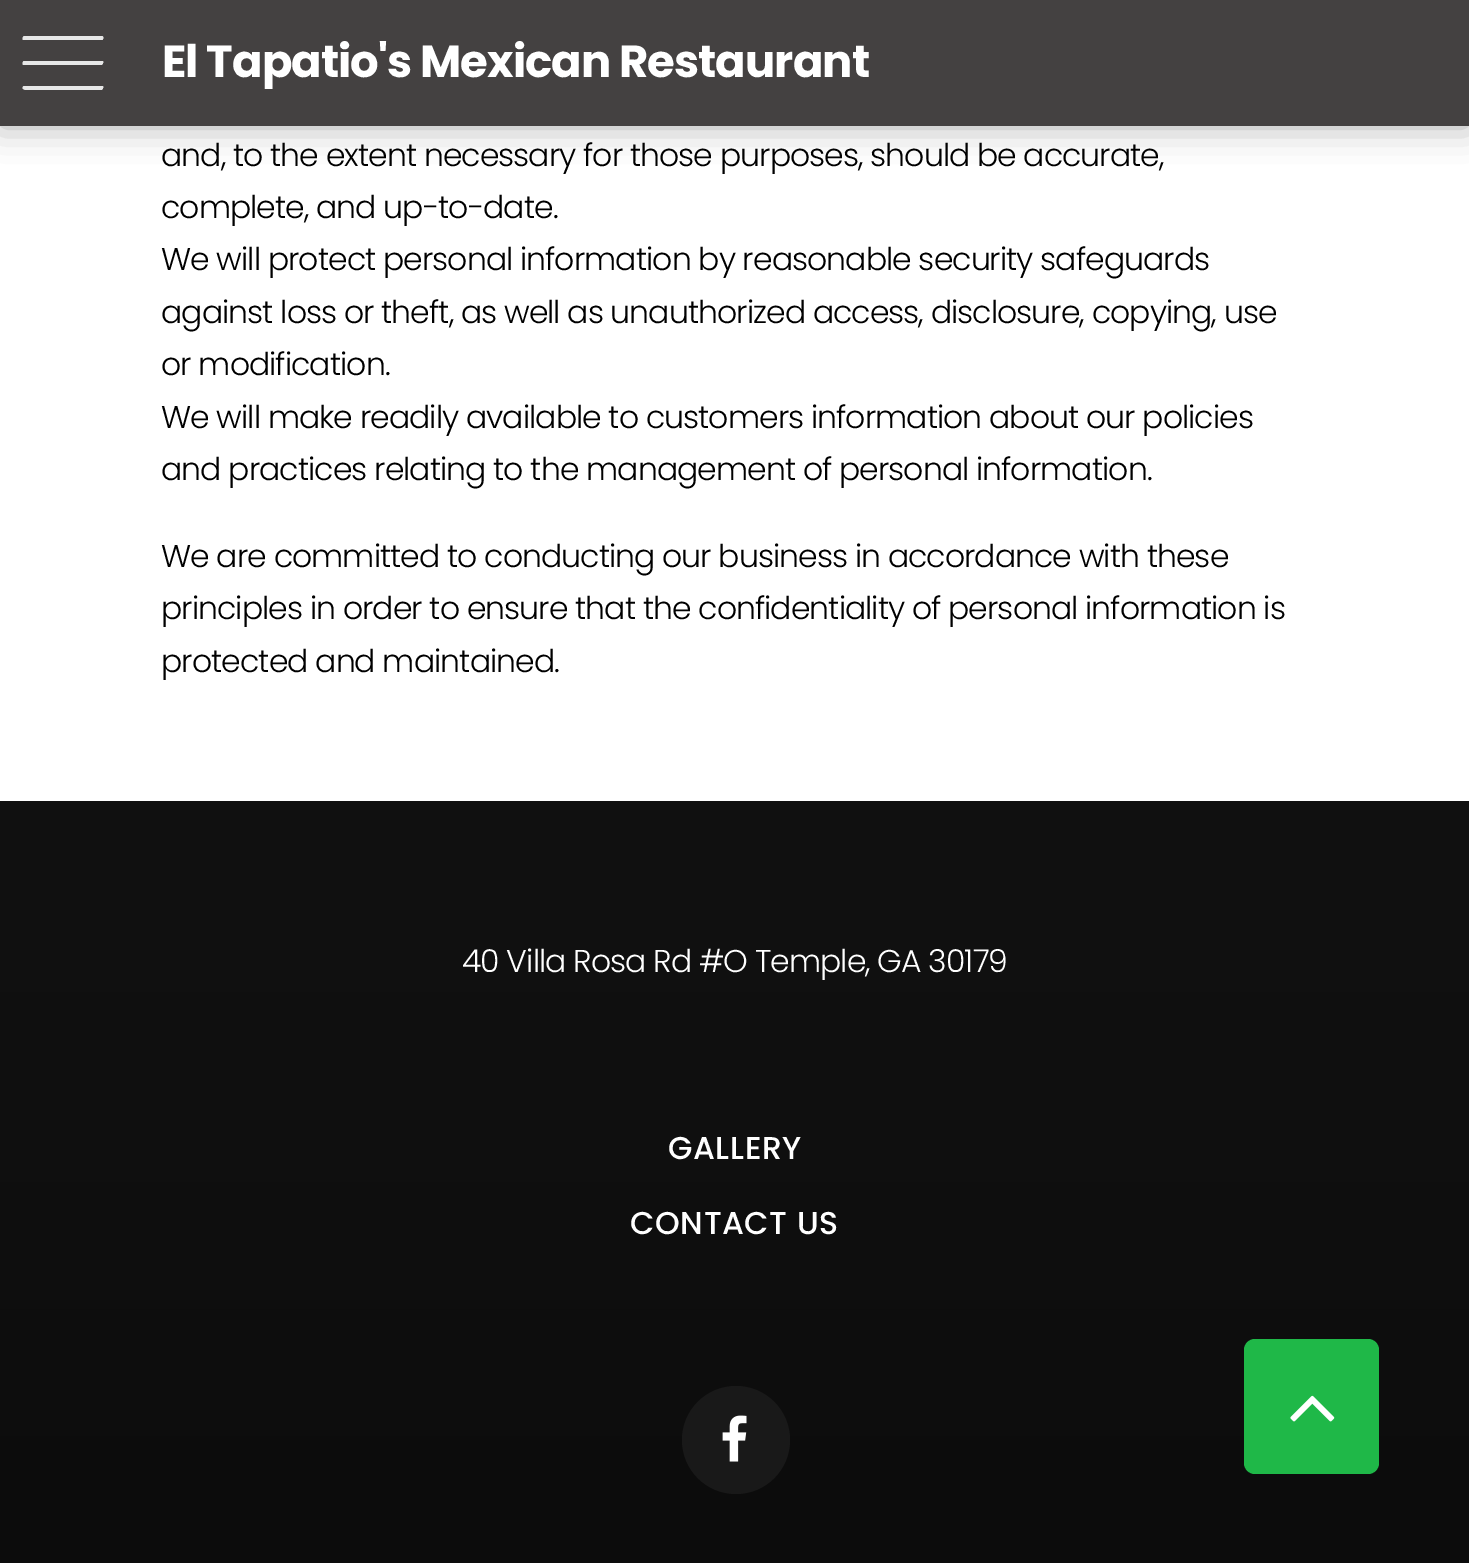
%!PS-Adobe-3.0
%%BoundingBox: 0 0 1469 1563
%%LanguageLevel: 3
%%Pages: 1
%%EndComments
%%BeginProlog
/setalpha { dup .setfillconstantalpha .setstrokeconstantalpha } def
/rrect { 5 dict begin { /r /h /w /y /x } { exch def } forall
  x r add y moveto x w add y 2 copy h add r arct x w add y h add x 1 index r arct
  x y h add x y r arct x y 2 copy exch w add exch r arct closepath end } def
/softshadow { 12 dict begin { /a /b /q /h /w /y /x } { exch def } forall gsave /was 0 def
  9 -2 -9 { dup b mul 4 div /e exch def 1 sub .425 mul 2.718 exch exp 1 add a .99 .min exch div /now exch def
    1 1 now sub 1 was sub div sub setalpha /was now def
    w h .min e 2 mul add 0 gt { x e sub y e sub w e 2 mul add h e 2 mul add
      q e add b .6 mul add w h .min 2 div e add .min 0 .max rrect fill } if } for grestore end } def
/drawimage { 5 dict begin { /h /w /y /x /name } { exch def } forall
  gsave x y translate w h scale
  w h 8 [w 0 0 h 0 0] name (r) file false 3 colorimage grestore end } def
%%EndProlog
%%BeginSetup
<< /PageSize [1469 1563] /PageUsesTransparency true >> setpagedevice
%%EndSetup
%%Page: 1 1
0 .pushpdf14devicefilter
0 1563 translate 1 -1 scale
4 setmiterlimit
1 setgray
0 0 1469 1563 rectfill
0.082 setgray
0 0 1469 126 0 17 0.35 softshadow
0.267 0.255 0.255 setrgbcolor
0 0 1469 126 rectfill
0.906 setgray
newpath 101 65 moveto 25 65 lineto 23 65 lineto 22 63 23 61 24 61 curveto 102 61 lineto 103 61 104 62 103 63 curveto 103 64 102 65 101 65 curveto closepath fill
newpath 101 40 moveto 25 40 lineto 23 40 lineto 22 39 23 36 24 36 curveto 102 36 lineto 103 36 104 38 103 39 curveto 103 40 102 40 101 40 curveto closepath fill
newpath 101 90 moveto 25 90 lineto 23 89 lineto 22 88 23 86 24 86 curveto 102 86 lineto 103 86 104 87 103 88 curveto 103 89 102 90 101 90 curveto closepath fill
gsave newpath 0 801 moveto 1469 801 lineto 1469 1563 lineto 0 1563 lineto closepath clip newpath
<< /ShadingType 2 /ColorSpace /DeviceRGB /Coords [735 801 735 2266] /Extend [true true] /Function << /FunctionType 2 /Domain [0 1] /C0 [0.067 0.067 0.067] /C1 [0.031 0.031 0.031] /N 1 >> >> shfill grestore
0.098 setgray
newpath 736 1440 54 0 360 arc closepath fill
(images/1.raw) 722 1415 25 47 drawimage
0.122 0.722 0.282 setrgbcolor
1244 1339 135 135 11 rrect fill
(images/2.raw) 1290 1395 45 27 drawimage
/Poppins-Bold [45 0 0 -45 0 0] selectfont
1 setgray
162 77 moveto -0.95 0 (El Tapatio's Mexican Restaurant) ashow
/Poppins-Light [31.5 0 0 -31.5 0 0] selectfont
0 setgray
161 166 moveto -0.95 0 (and, to the extent necessary for those purposes, should be accurate,) ashow
161 218 moveto -0.95 0 (complete, and up-to-date.) ashow
161 270 moveto -0.95 0 (We will protect personal information by reasonable security safeguards) ashow
161 323 moveto -0.95 0 (against loss or theft, as well as unauthorized access, disclosure, copying, use) ashow
161 375 moveto -0.95 0 (or modification.) ashow
161 428 moveto -0.95 0 (We will make readily available to customers information about our policies) ashow
161 480 moveto -0.95 0 (and practices relating to the management of personal information.) ashow
161 567 moveto -0.95 0 (We are committed to conducting our business in accordance with these) ashow
161 619 moveto -0.95 0 (principles in order to ensure that the confidentiality of personal information is) ashow
161 672 moveto -0.95 0 (protected and maintained.) ashow
1 setgray
462 972 moveto -0.95 0 (40 Villa Rosa Rd #O Temple, GA 30179) ashow
/Poppins-Medium [31.5 0 0 -31.5 0 0] selectfont
668 1159 moveto 0.6 0 (GALLERY) ashow
630 1234 moveto 0.6 0 (CONTACT US) ashow
.poppdf14devicefilter showpage
%%EOF
